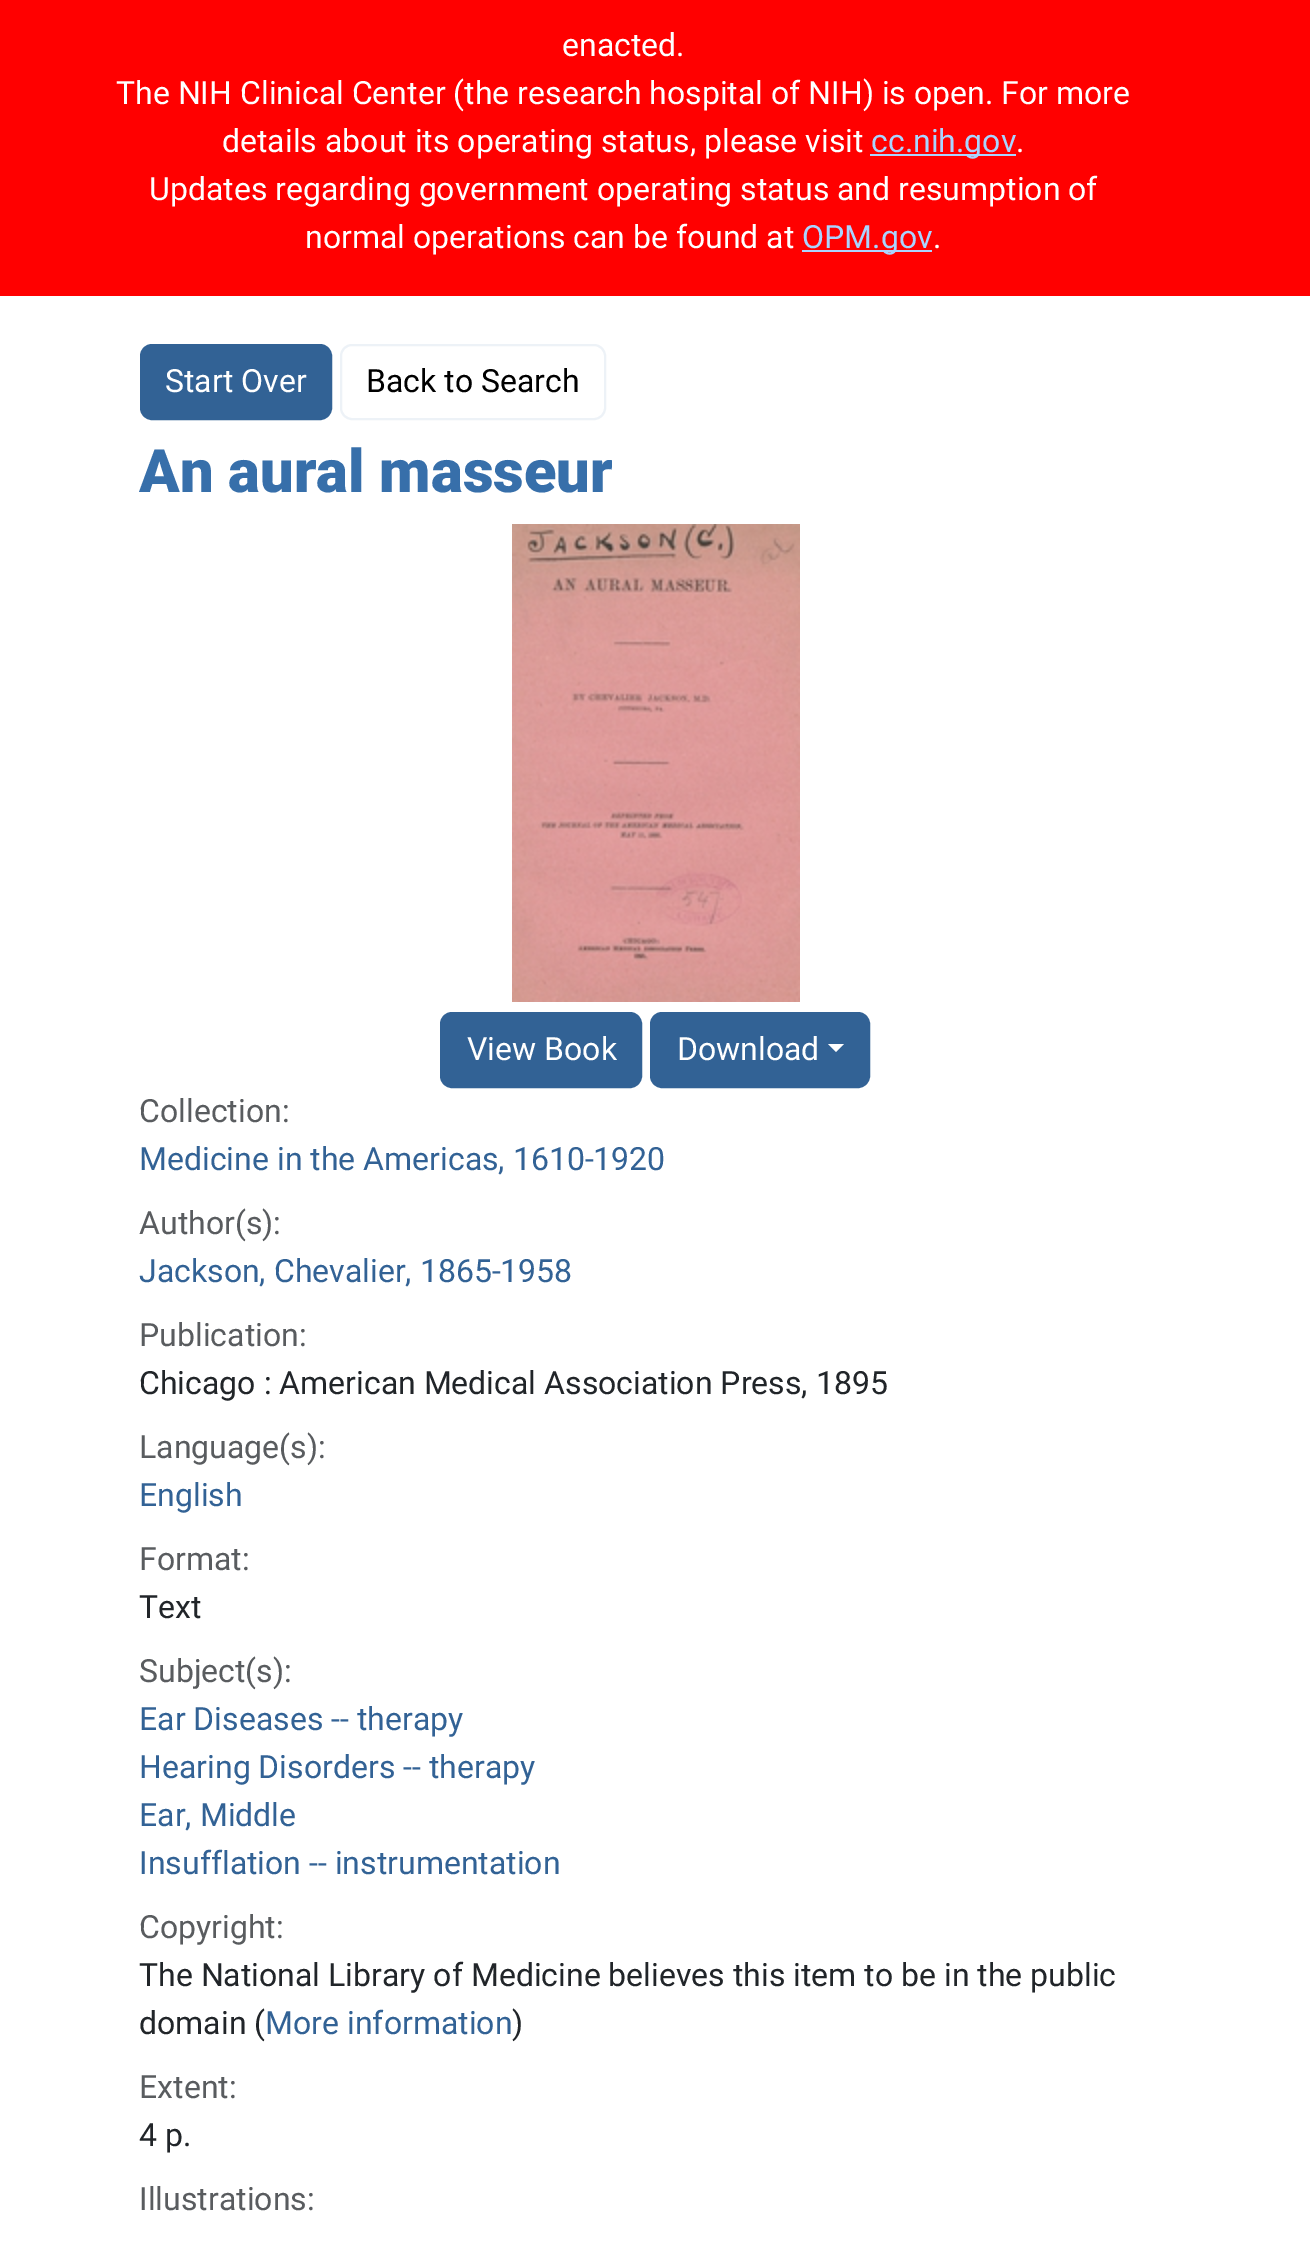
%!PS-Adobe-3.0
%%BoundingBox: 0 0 1310 2241
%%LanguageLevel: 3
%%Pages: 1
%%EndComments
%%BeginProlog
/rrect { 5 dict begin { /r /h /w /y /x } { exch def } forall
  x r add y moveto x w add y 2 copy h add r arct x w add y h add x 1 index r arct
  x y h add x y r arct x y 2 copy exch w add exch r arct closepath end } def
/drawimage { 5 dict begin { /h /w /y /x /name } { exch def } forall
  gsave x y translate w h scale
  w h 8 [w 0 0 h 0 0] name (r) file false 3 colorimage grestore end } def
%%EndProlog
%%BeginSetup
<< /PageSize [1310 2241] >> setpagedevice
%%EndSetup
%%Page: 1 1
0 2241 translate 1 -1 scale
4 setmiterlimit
1 setgray
0 0 1310 2241 rectfill
1 0 0 setrgbcolor
0 0 1310 296 rectfill
0.667 0.831 1 setrgbcolor
870 154 146 2 rectfill
802 250 130 2 rectfill
0.196 0.384 0.584 setrgbcolor
141 345 190 74 11 rrect gsave fill grestore
2 setlinewidth
stroke
0.929 0.949 0.969 setrgbcolor
341 345 264 74 11 rrect stroke
(images/1.raw) 512 524 288 478 drawimage
0.196 0.384 0.584 setrgbcolor
441 1013 200 74 11 rrect gsave fill grestore
stroke
651 1013 218 74 11 rrect gsave fill grestore
stroke
1 setgray
newpath 828 1044 moveto 844 1044 lineto 836 1052 lineto closepath fill
/Roboto-Regular [32 0 0 -32 0 0] selectfont
562 56 moveto (enacted.) show
116 104 moveto (The NIH Clinical Center \(the research hospital of NIH\) is open. For more) show
222 152 moveto (details about its operating status, please visit) show
0.667 0.831 1 setrgbcolor
871 152 moveto (cc.nih.gov) show
1 setgray
1016 152 moveto (.) show
149 200 moveto (Updates regarding government operating status and resumption of) show
305 248 moveto (normal operations can be found at) show
0.667 0.831 1 setrgbcolor
802 248 moveto (OPM.gov) show
1 setgray
933 248 moveto (.) show
165 392 moveto (Start Over) show
0 setgray
366 392 moveto (Back to Search) show
/Roboto-Black [59.75 0 0 -59.75 0 0] selectfont
0.216 0.435 0.667 setrgbcolor
139 492 moveto (An aural masseur) show
/Roboto-Regular [32 0 0 -32 0 0] selectfont
1 setgray
467 1060 moveto (View Book) show
677 1060 moveto (Download) show
0.349 0.361 0.373 setrgbcolor
139 1122 moveto (Collection:) show
0.196 0.384 0.584 setrgbcolor
139 1170 moveto (Medicine in the Americas, 1610-1920) show
0.349 0.361 0.373 setrgbcolor
139 1234 moveto (Author\(s\):) show
0.196 0.384 0.584 setrgbcolor
139 1282 moveto (Jackson, Chevalier, 1865-1958) show
0.349 0.361 0.373 setrgbcolor
139 1346 moveto (Publication:) show
0.129 0.145 0.161 setrgbcolor
139 1394 moveto (Chicago : American Medical Association Press, 1895) show
0.349 0.361 0.373 setrgbcolor
139 1458 moveto (Language\(s\):) show
0.196 0.384 0.584 setrgbcolor
139 1506 moveto (English) show
0.349 0.361 0.373 setrgbcolor
139 1570 moveto (Format:) show
0.129 0.145 0.161 setrgbcolor
139 1618 moveto (Text) show
0.349 0.361 0.373 setrgbcolor
139 1682 moveto (Subject\(s\):) show
0.196 0.384 0.584 setrgbcolor
139 1730 moveto (Ear Diseases -- therapy) show
139 1778 moveto (Hearing Disorders -- therapy) show
139 1826 moveto (Ear, Middle) show
139 1874 moveto (Insufflation -- instrumentation) show
0.349 0.361 0.373 setrgbcolor
139 1938 moveto (Copyright:) show
0.129 0.145 0.161 setrgbcolor
139 1986 moveto (The National Library of Medicine believes this item to be in the public) show
139 2034 moveto (domain \() show
0.196 0.384 0.584 setrgbcolor
265 2034 moveto (More information) show
0.129 0.145 0.161 setrgbcolor
512 2034 moveto (\)) show
0.349 0.361 0.373 setrgbcolor
139 2098 moveto (Extent:) show
0.129 0.145 0.161 setrgbcolor
139 2146 moveto (4 p.) show
0.349 0.361 0.373 setrgbcolor
139 2210 moveto (Illustrations:) show
showpage
%%EOF
